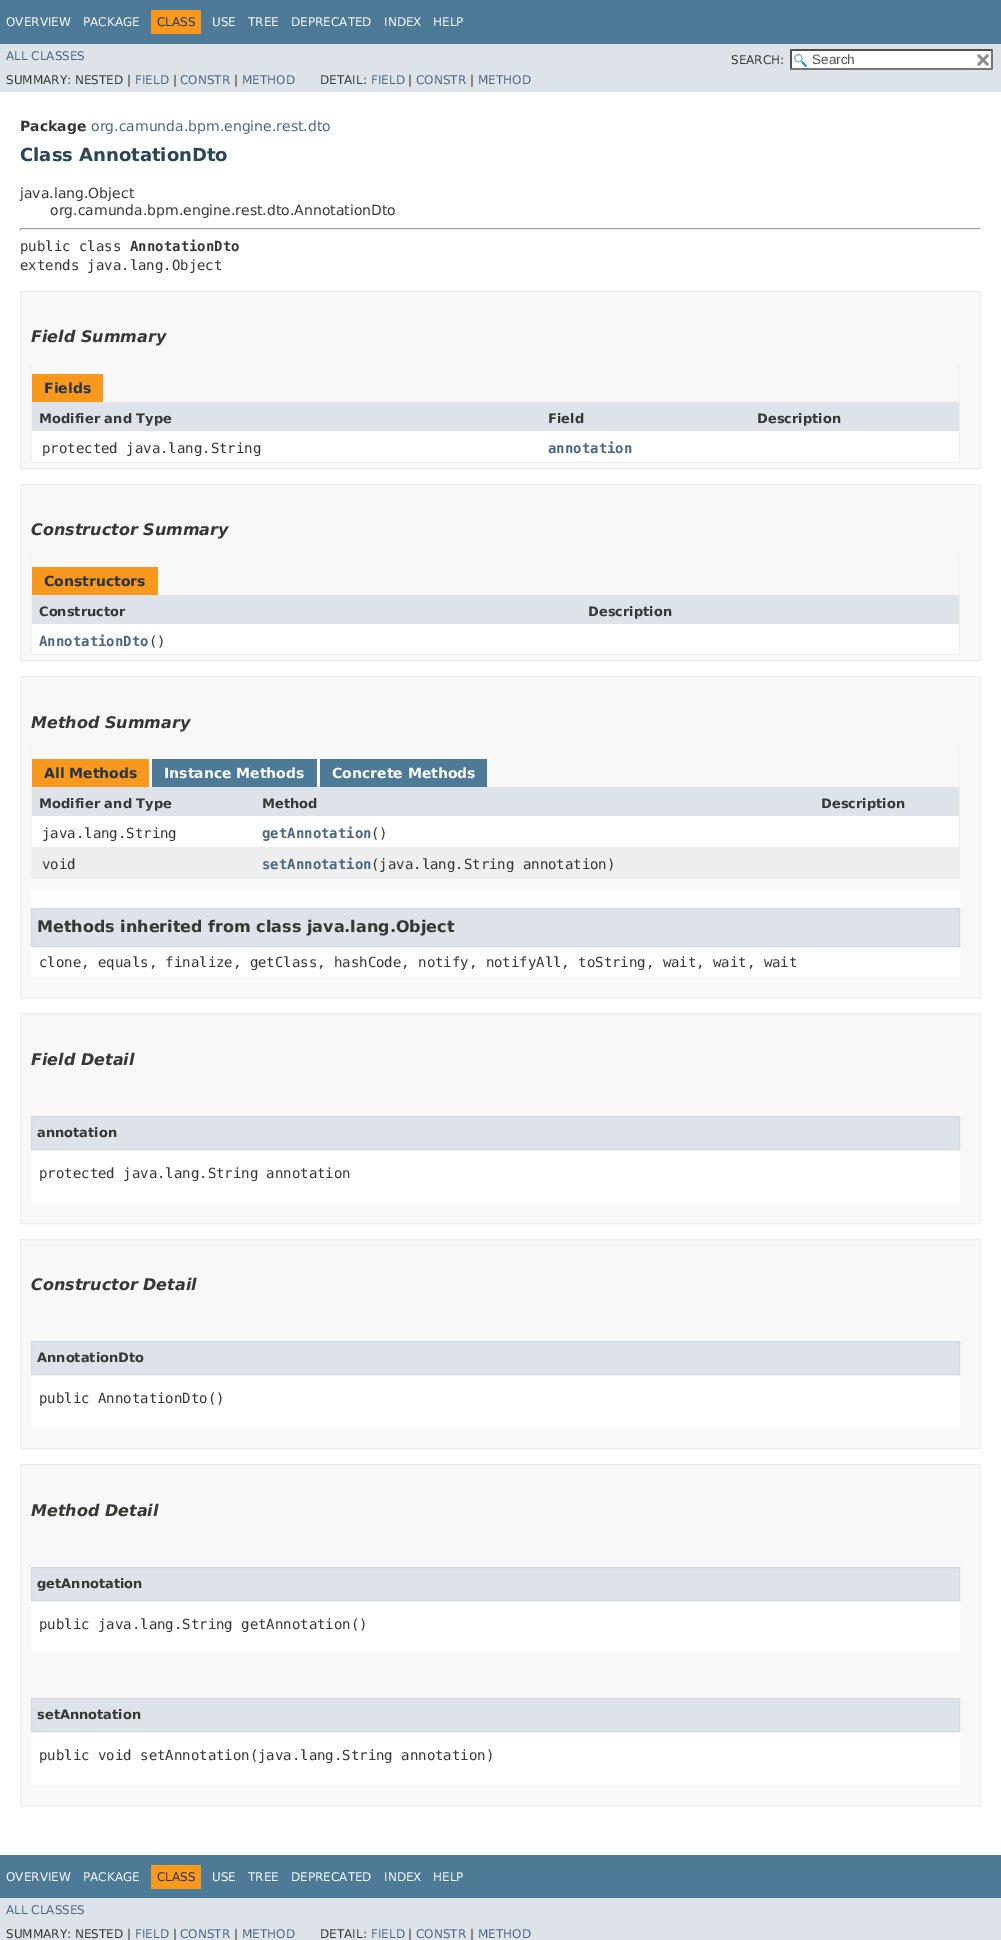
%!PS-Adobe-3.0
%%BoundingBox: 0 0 1001 1940
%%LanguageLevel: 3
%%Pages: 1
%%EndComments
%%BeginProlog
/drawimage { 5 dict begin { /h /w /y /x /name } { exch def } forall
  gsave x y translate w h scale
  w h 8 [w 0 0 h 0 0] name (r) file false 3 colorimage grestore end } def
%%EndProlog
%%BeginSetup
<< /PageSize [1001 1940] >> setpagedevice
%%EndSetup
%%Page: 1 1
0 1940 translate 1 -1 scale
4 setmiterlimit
1 setgray
0 0 1001 1940 rectfill
0.302 0.478 0.592 setrgbcolor
0 0 1001 44 rectfill
0.973 0.596 0.114 setrgbcolor
151 10 50 24 rectfill
0.871 0.89 0.914 setrgbcolor
0 44 1001 48 rectfill
1 setgray
790 49 203 21 rectfill
(images/1.raw) 794 54 13 13 drawimage
0.31 setgray
newpath 790 49 moveto 993 49 lineto 991 51 lineto 792 51 lineto closepath fill
0.463 setgray
newpath 993 49 moveto 993 70 lineto 991 68 lineto 991 51 lineto closepath fill
newpath 993 70 moveto 790 70 lineto 792 68 lineto 991 68 lineto closepath fill
0.31 setgray
newpath 790 70 moveto 790 49 lineto 792 51 lineto 792 68 lineto closepath fill
(images/2.raw) 976 54 14 12 drawimage
0.624 setgray
20 228 961 1 rectfill
0.933 setgray
980 228 1 2 rectfill
20 229 961 1 rectfill
0.624 setgray
20 228 1 2 rectfill
0.973 setgray
newpath 20.5 291.5 moveto 980.5 291.5 lineto 980.5 468.5 lineto 20.5 468.5 lineto closepath gsave fill grestore
0.929 setgray
stroke
0.933 setgray
959 364 1 99 rectfill
31 462 929 1 rectfill
31 364 1 99 rectfill
0.973 0.596 0.114 setrgbcolor
32 374 71 28 rectfill
0.871 0.89 0.914 setrgbcolor
32 402 927 29 rectfill
1 setgray
32 431 927 31 rectfill
0.973 setgray
newpath 20.5 484.5 moveto 980.5 484.5 lineto 980.5 660.5 lineto 20.5 660.5 lineto closepath gsave fill grestore
0.929 setgray
stroke
0.933 setgray
959 557 1 98 rectfill
31 654 929 1 rectfill
31 557 1 98 rectfill
0.973 0.596 0.114 setrgbcolor
32 567 126 28 rectfill
0.871 0.89 0.914 setrgbcolor
32 595 927 29 rectfill
1 setgray
32 624 927 30 rectfill
0.973 setgray
newpath 20.5 676.5 moveto 980.5 676.5 lineto 980.5 997.5 lineto 20.5 997.5 lineto closepath gsave fill grestore
0.929 setgray
stroke
0.933 setgray
959 749 1 130 rectfill
31 878 929 1 rectfill
31 749 1 130 rectfill
0.973 0.596 0.114 setrgbcolor
32 759 117 28 rectfill
0.302 0.478 0.592 setrgbcolor
152 759 165 28 rectfill
320 759 167 28 rectfill
0.871 0.89 0.914 setrgbcolor
32 787 927 29 rectfill
1 setgray
32 816 927 31 rectfill
0.933 0.933 0.937 setrgbcolor
32 847 927 31 rectfill
1 setgray
31 889 929 88 rectfill
0.871 0.89 0.914 setrgbcolor
newpath 31.5 908.5 moveto 959.5 908.5 lineto 959.5 946.5 lineto 31.5 946.5 lineto closepath gsave fill grestore
0.816 0.851 0.878 setrgbcolor
stroke
0.973 setgray
newpath 20.5 1013.5 moveto 980.5 1013.5 lineto 980.5 1223.5 lineto 20.5 1223.5 lineto closepath gsave fill grestore
0.929 setgray
stroke
1 setgray
31 1150 929 53 rectfill
0.871 0.89 0.914 setrgbcolor
newpath 31.5 1116.5 moveto 959.5 1116.5 lineto 959.5 1149.5 lineto 31.5 1149.5 lineto closepath gsave fill grestore
0.816 0.851 0.878 setrgbcolor
stroke
0.973 setgray
newpath 20.5 1239.5 moveto 980.5 1239.5 lineto 980.5 1448.5 lineto 20.5 1448.5 lineto closepath gsave fill grestore
0.929 setgray
stroke
1 setgray
31 1375 929 53 rectfill
0.871 0.89 0.914 setrgbcolor
newpath 31.5 1341.5 moveto 959.5 1341.5 lineto 959.5 1374.5 lineto 31.5 1374.5 lineto closepath gsave fill grestore
0.816 0.851 0.878 setrgbcolor
stroke
0.973 setgray
newpath 20.5 1464.5 moveto 980.5 1464.5 lineto 980.5 1805.5 lineto 20.5 1805.5 lineto closepath gsave fill grestore
0.929 setgray
stroke
1 setgray
31 1601 929 52 rectfill
0.871 0.89 0.914 setrgbcolor
newpath 31.5 1567.5 moveto 959.5 1567.5 lineto 959.5 1600.5 lineto 31.5 1600.5 lineto closepath gsave fill grestore
0.816 0.851 0.878 setrgbcolor
stroke
1 setgray
31 1732 929 53 rectfill
0.871 0.89 0.914 setrgbcolor
newpath 31.5 1698.5 moveto 959.5 1698.5 lineto 959.5 1731.5 lineto 31.5 1731.5 lineto closepath gsave fill grestore
0.816 0.851 0.878 setrgbcolor
stroke
0.302 0.478 0.592 setrgbcolor
0 1855 1001 43 rectfill
0.973 0.596 0.114 setrgbcolor
151 1865 50 24 rectfill
0.871 0.89 0.914 setrgbcolor
0 1898 1001 42 rectfill
/DejaVuSans-Regular [12 0 0 -12 0 0] selectfont
1 setgray
6 26 moveto (OVERVIEW) show
83 26 moveto (PACKAGE) show
0.145 0.204 0.255 setrgbcolor
157 26 moveto (CLASS) show
1 setgray
212 26 moveto (USE) show
248 26 moveto (TREE) show
291 26 moveto (DEPRECATED) show
384 26 moveto (INDEX) show
433 26 moveto (HELP) show
0.29 0.404 0.51 setrgbcolor
6 60 moveto (ALL CLASSES) show
0.208 0.22 0.2 setrgbcolor
731 64 moveto (SEARCH:) show
/LiberationSans-Regular [13.5 0 0 -13.5 0 0] selectfont
0.329 setgray
812 64 moveto (Search) show
/DejaVuSans-Regular [12 0 0 -12 0 0] selectfont
0.208 0.22 0.2 setrgbcolor
6 84 moveto (SUMMARY: NESTED |) show
0.29 0.404 0.51 setrgbcolor
135 84 moveto (FIELD) show
0.208 0.22 0.2 setrgbcolor
173 84 moveto (|) show
0.29 0.404 0.51 setrgbcolor
180 84 moveto (CONSTR) show
0.208 0.22 0.2 setrgbcolor
234 84 moveto (|) show
0.29 0.404 0.51 setrgbcolor
242 84 moveto (METHOD) show
0.208 0.22 0.2 setrgbcolor
320 84 moveto (DETAIL:) show
0.29 0.404 0.51 setrgbcolor
371 84 moveto (FIELD) show
0.208 0.22 0.2 setrgbcolor
408 84 moveto (|) show
0.29 0.404 0.51 setrgbcolor
416 84 moveto (CONSTR) show
0.208 0.22 0.2 setrgbcolor
470 84 moveto (|) show
0.29 0.404 0.51 setrgbcolor
478 84 moveto (METHOD) show
/DejaVuSans-Bold [14 0 0 -14 0 0] selectfont
0.208 0.22 0.2 setrgbcolor
20 131 moveto (Package) show
/DejaVuSans-Regular [14 0 0 -14 0 0] selectfont
0.29 0.404 0.51 setrgbcolor
91 131 moveto (org.camunda.bpm.engine.rest.dto) show
/DejaVuSans-Bold [18 0 0 -18 0 0] selectfont
0.173 0.271 0.341 setrgbcolor
20 161 moveto (Class AnnotationDto) show
/DejaVuSans-Regular [14 0 0 -14 0 0] selectfont
0.208 0.22 0.2 setrgbcolor
20 198 moveto (java.lang.Object) show
50 215 moveto (org.camunda.bpm.engine.rest.dto.AnnotationDto) show
/DejaVuSansMono-Regular [14 0 0 -14 0 0] selectfont
20 251 moveto (public class) show
/DejaVuSansMono-Bold [14 0 0 -14 0 0] selectfont
130 251 moveto (AnnotationDto) show
/DejaVuSansMono-Regular [14 0 0 -14 0 0] selectfont
20 270 moveto (extends java.lang.Object) show
/DejaVuSans-BoldItalic [16 0 0 -16 0 0] selectfont
31 342 moveto (Field Summary) show
/DejaVuSans-Bold [14 0 0 -14 0 0] selectfont
0.145 0.204 0.255 setrgbcolor
44 393 moveto (Fields) show
/DejaVuSans-Bold [13 0 0 -13 0 0] selectfont
0.208 0.22 0.2 setrgbcolor
39 423 moveto (Modifier and Type) show
548 423 moveto (Field) show
757 423 moveto (Description) show
/DejaVuSansMono-Regular [14 0 0 -14 0 0] selectfont
42 453 moveto (protected java.lang.String) show
/DejaVuSansMono-Bold [14 0 0 -14 0 0] selectfont
0.29 0.404 0.51 setrgbcolor
548 453 moveto (annotation) show
/DejaVuSans-BoldItalic [16 0 0 -16 0 0] selectfont
0.208 0.22 0.2 setrgbcolor
31 535 moveto (Constructor Summary) show
/DejaVuSans-Bold [14 0 0 -14 0 0] selectfont
0.145 0.204 0.255 setrgbcolor
44 586 moveto (Constructors) show
/DejaVuSans-Bold [13 0 0 -13 0 0] selectfont
0.208 0.22 0.2 setrgbcolor
39 616 moveto (Constructor) show
588 616 moveto (Description) show
/DejaVuSansMono-Bold [14 0 0 -14 0 0] selectfont
0.29 0.404 0.51 setrgbcolor
39 646 moveto (AnnotationDto) show
/DejaVuSansMono-Regular [14 0 0 -14 0 0] selectfont
0.208 0.22 0.2 setrgbcolor
149 646 moveto (\(\)) show
/DejaVuSans-BoldItalic [16 0 0 -16 0 0] selectfont
31 728 moveto (Method Summary) show
/DejaVuSans-Bold [14 0 0 -14 0 0] selectfont
0.145 0.204 0.255 setrgbcolor
44 778 moveto (All Methods) show
1 setgray
164 778 moveto (Instance Methods) show
332 778 moveto (Concrete Methods) show
/DejaVuSans-Bold [13 0 0 -13 0 0] selectfont
0.208 0.22 0.2 setrgbcolor
39 808 moveto (Modifier and Type) show
262 808 moveto (Method) show
821 808 moveto (Description) show
/DejaVuSansMono-Regular [14 0 0 -14 0 0] selectfont
42 838 moveto (java.lang.String) show
/DejaVuSansMono-Bold [14 0 0 -14 0 0] selectfont
0.29 0.404 0.51 setrgbcolor
262 838 moveto (getAnnotation) show
/DejaVuSansMono-Regular [14 0 0 -14 0 0] selectfont
0.208 0.22 0.2 setrgbcolor
371 838 moveto (\(\)) show
42 869 moveto (void) show
/DejaVuSansMono-Bold [14 0 0 -14 0 0] selectfont
0.29 0.404 0.51 setrgbcolor
262 869 moveto (setAnnotation) show
/DejaVuSansMono-Regular [14 0 0 -14 0 0] selectfont
0.208 0.22 0.2 setrgbcolor
371 869 moveto (\(java.lang.String annotation\)) show
/DejaVuSans-Bold [16 0 0 -16 0 0] selectfont
37 932 moveto (Methods inherited from class java.lang.Object) show
/DejaVuSansMono-Regular [14 0 0 -14 0 0] selectfont
39 967 moveto (clone, equals, finalize, getClass, hashCode, notify, notifyAll, toString, wait, wait, wait) show
/DejaVuSans-BoldItalic [16 0 0 -16 0 0] selectfont
31 1065 moveto (Field Detail) show
/DejaVuSans-Bold [13 0 0 -13 0 0] selectfont
37 1137 moveto (annotation) show
/DejaVuSansMono-Regular [14 0 0 -14 0 0] selectfont
39 1178 moveto (protected java.lang.String annotation) show
/DejaVuSans-BoldItalic [16 0 0 -16 0 0] selectfont
31 1290 moveto (Constructor Detail) show
/DejaVuSans-Bold [13 0 0 -13 0 0] selectfont
37 1362 moveto (AnnotationDto) show
/DejaVuSansMono-Regular [14 0 0 -14 0 0] selectfont
39 1403 moveto (public AnnotationDto\(\)) show
/DejaVuSans-BoldItalic [16 0 0 -16 0 0] selectfont
31 1516 moveto (Method Detail) show
/DejaVuSans-Bold [13 0 0 -13 0 0] selectfont
37 1588 moveto (getAnnotation) show
/DejaVuSansMono-Regular [14 0 0 -14 0 0] selectfont
39 1629 moveto (public java.lang.String getAnnotation\(\)) show
/DejaVuSans-Bold [13 0 0 -13 0 0] selectfont
37 1719 moveto (setAnnotation) show
/DejaVuSansMono-Regular [14 0 0 -14 0 0] selectfont
39 1760 moveto (public void setAnnotation\(java.lang.String annotation\)) show
/DejaVuSans-Regular [12 0 0 -12 0 0] selectfont
1 setgray
6 1881 moveto (OVERVIEW) show
83 1881 moveto (PACKAGE) show
0.145 0.204 0.255 setrgbcolor
157 1881 moveto (CLASS) show
1 setgray
212 1881 moveto (USE) show
248 1881 moveto (TREE) show
291 1881 moveto (DEPRECATED) show
384 1881 moveto (INDEX) show
433 1881 moveto (HELP) show
0.29 0.404 0.51 setrgbcolor
6 1914 moveto (ALL CLASSES) show
0.208 0.22 0.2 setrgbcolor
6 1938 moveto (SUMMARY: NESTED |) show
0.29 0.404 0.51 setrgbcolor
135 1938 moveto (FIELD) show
0.208 0.22 0.2 setrgbcolor
173 1938 moveto (|) show
0.29 0.404 0.51 setrgbcolor
180 1938 moveto (CONSTR) show
0.208 0.22 0.2 setrgbcolor
234 1938 moveto (|) show
0.29 0.404 0.51 setrgbcolor
242 1938 moveto (METHOD) show
0.208 0.22 0.2 setrgbcolor
320 1938 moveto (DETAIL:) show
0.29 0.404 0.51 setrgbcolor
371 1938 moveto (FIELD) show
0.208 0.22 0.2 setrgbcolor
408 1938 moveto (|) show
0.29 0.404 0.51 setrgbcolor
416 1938 moveto (CONSTR) show
0.208 0.22 0.2 setrgbcolor
470 1938 moveto (|) show
0.29 0.404 0.51 setrgbcolor
478 1938 moveto (METHOD) show
showpage
%%EOF
